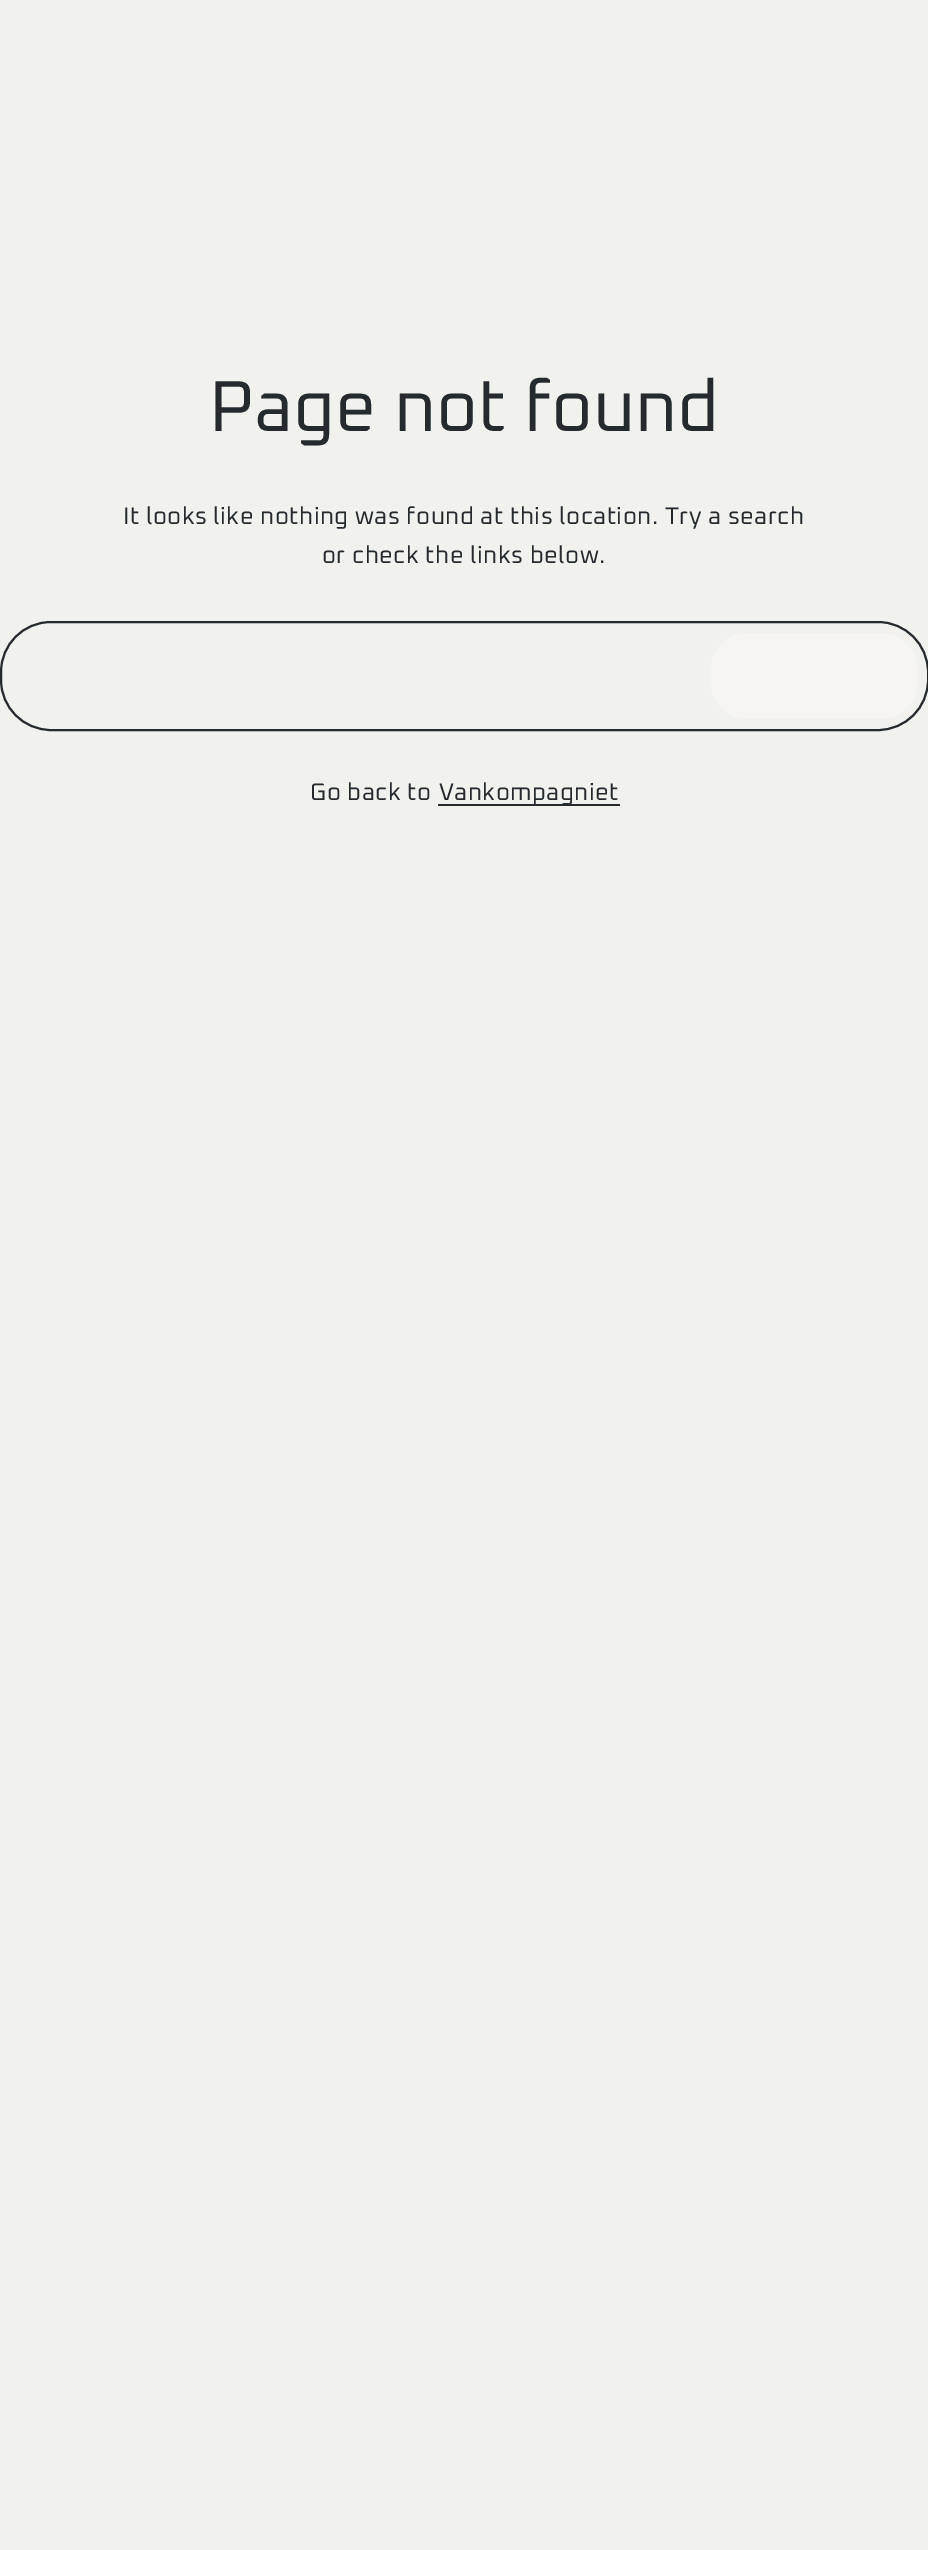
%!PS-Adobe-3.0
%%BoundingBox: 0 0 928 2550
%%LanguageLevel: 3
%%Pages: 1
%%EndComments
%%BeginProlog
/rrect { 5 dict begin { /r /h /w /y /x } { exch def } forall
  x r add y moveto x w add y 2 copy h add r arct x w add y h add x 1 index r arct
  x y h add x y r arct x y 2 copy exch w add exch r arct closepath end } def
%%EndProlog
%%BeginSetup
<< /PageSize [928 2550] >> setpagedevice
%%EndSetup
%%Page: 1 1
0 2550 translate 1 -1 scale
4 setmiterlimit
0.945 0.949 0.933 setrgbcolor
0 0 928 2550 rectfill
0.141 0.165 0.18 setrgbcolor
2 setlinewidth
1 622 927 108 50 rrect stroke
0.965 0.961 0.949 setrgbcolor
711 633 206 86 36 rrect fill
0.141 0.165 0.18 setrgbcolor
438 804 182 2 rectfill
/Oxanium-Regular [72 0 0 -72 0 0] selectfont
209 431 moveto (Page not found) show
/Oxanium-Regular [24 0 0 -24 0 0] selectfont
123 524 moveto 0.48 0 (It looks like nothing was found at this location. Try a search) ashow
322 563 moveto 0.48 0 (or check the links below.) ashow
310 800 moveto 0.48 0 (Go back to) ashow
439 800 moveto 0.48 0 (Vankompagniet) ashow
showpage
%%EOF
